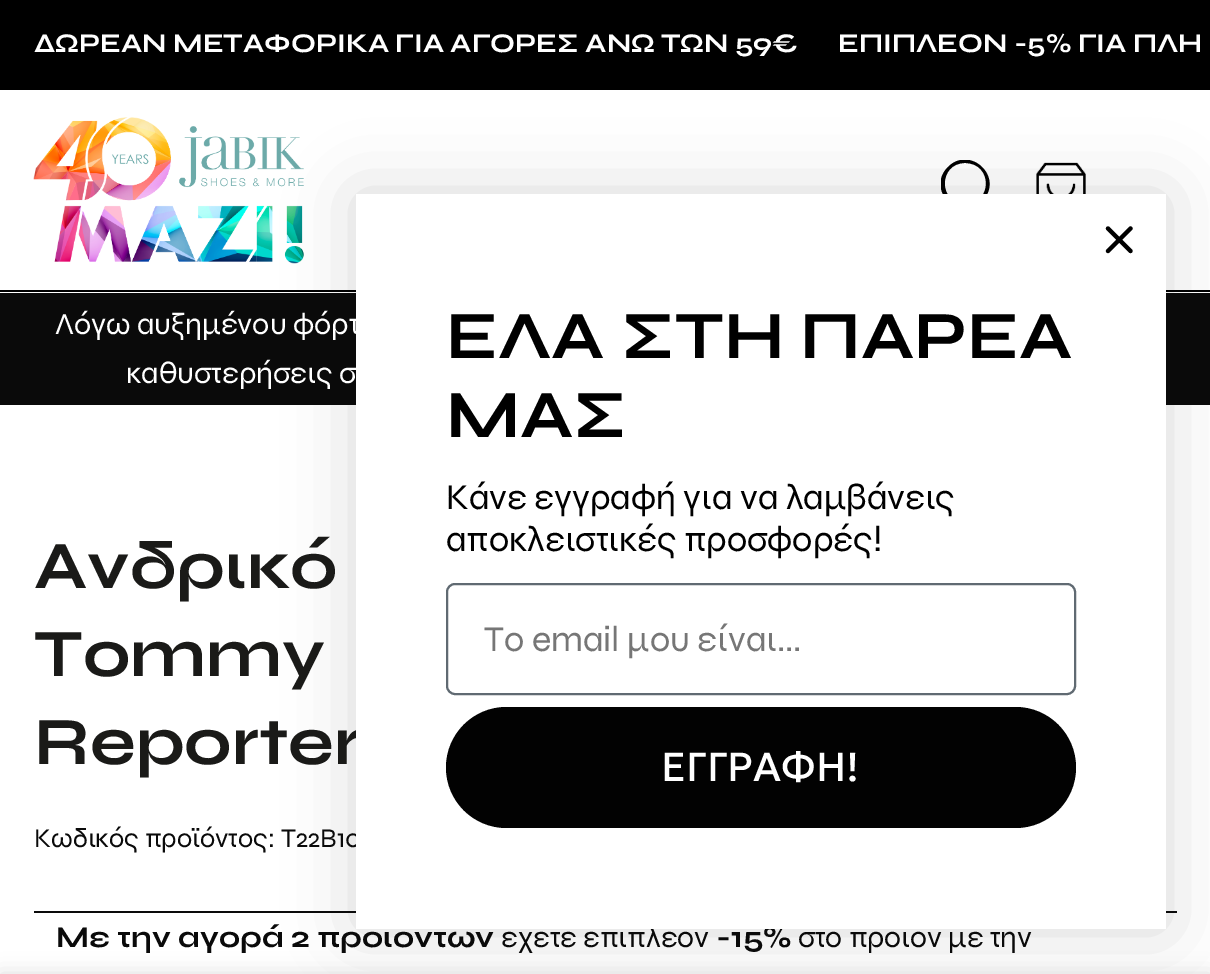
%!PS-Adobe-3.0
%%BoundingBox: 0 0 1210 974
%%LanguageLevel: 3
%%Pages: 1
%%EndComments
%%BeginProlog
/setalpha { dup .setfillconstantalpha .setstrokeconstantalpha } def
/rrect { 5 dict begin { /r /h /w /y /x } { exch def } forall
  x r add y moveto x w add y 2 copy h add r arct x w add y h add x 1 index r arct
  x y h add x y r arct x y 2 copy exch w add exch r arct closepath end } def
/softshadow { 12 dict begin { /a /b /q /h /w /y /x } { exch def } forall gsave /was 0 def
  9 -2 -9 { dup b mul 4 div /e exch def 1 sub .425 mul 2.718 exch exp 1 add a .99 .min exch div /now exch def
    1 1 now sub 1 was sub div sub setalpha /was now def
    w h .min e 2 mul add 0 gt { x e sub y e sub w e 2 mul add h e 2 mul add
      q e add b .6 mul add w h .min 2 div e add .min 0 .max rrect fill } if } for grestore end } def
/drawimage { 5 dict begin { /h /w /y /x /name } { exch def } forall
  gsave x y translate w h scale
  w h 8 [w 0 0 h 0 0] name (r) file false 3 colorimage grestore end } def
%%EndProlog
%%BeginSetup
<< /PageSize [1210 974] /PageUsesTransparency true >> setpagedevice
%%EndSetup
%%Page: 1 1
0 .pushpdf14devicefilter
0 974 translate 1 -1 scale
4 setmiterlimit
1 setgray
0 0 1210 974 rectfill
0 setgray
0 0 1210 90 rectfill
0 290 1210 2 rectfill
(images/1.raw) 33 117 271 147 drawimage
gsave
941 160 58 58 rectclip
newpath 998 215 moveto 983 200 lineto 1004 177 970 145 948 167 curveto 926 189 957 222 981 203 curveto 983 205 996 219 998 218 curveto 999 218 999 216 998 215 curveto closepath 965 204 moveto 938 204 938 163 965 163 curveto 993 163 993 204 965 204 curveto closepath fill
grestore
(images/2.raw) 1036 162 50 32 drawimage
0.039 setgray
0 293 1210 112 rectfill
34 911 1143 2 rectfill
0 setgray
356 194 810 735 0 34 0.15 softshadow
0 974 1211 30 0 10 0.14 softshadow
/Syne-Bold [27 0 0 -27 0 0] selectfont
1 setgray
34 52 moveto (ΔΩΡΕΑΝ ΜΕΤΑΦΟΡΙΚΑ ΓΙΑ ΑΓΟΡΕΣ ΑΝΩ ΤΩΝ 59€) show
838 52 moveto (ΕΠΙΠΛΕΟΝ -5% ΓΙΑ ΠΛΗ) show
/Syne-Regular [30.5 0 0 -30.5 0 0] selectfont
55 334 moveto (Λόγω αυξημένου φόρτ) show
126 383 moveto (καθυστερήσεις σ) show
/Syne-Bold [67.5 0 0 -67.5 0 0] selectfont
0.102 0.102 0.094 setrgbcolor
34 588 moveto (Ανδρικό) show
34 676 moveto (Tommy) show
34 764 moveto (Reporter) show
/Syne-Regular [27 0 0 -27 0 0] selectfont
0.039 setgray
34 847 moveto (Kωδικός προϊόντος: T22B10) show
/Syne-Bold [30.1 0 0 -30.1 0 0] selectfont
56 947 moveto (Με την αγορά 2 προϊόντων) show
/Syne-Regular [30.1 0 0 -30.1 0 0] selectfont
501 947 moveto (έχετε επιπλέον) show
/Syne-Bold [30.1 0 0 -30.1 0 0] selectfont
716 947 moveto (-15%) show
/Syne-Regular [30.1 0 0 -30.1 0 0] selectfont
798 947 moveto (στο προϊόν με την) show
1 setgray
356 194 810 735 rectfill
0 setgray
4.2 setlinewidth
1 setlinecap
1 setlinejoin
newpath 1108 228.5 moveto 1130.5 251 lineto 1108 251 moveto 1130.5 228.5 lineto closepath stroke
/Syne-Bold [67.5 0 0 -67.5 0 0] selectfont
446 358 moveto (ΕΛΑ ΣΤΗ ΠΑΡΕΑ) show
446 437 moveto (ΜΑΣ) show
/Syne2-Regular [36 0 0 -36 0 0] selectfont
446 509 moveto (Κάνε εγγραφή για να λαμβάνεις) show
446 551 moveto (αποκλειστικές προσφορές!) show
0.376 0.416 0.447 setrgbcolor
2 setlinewidth
0 setlinecap
0 setlinejoin
447 584 628 110 8 rrect stroke
0.463 setgray
484 651 moveto (Το email μου είναι...) show
0.008 setgray
446 707 630 121 60.5 rrect fill
/Geologica-Regular [40.5 0 0 -40.5 0 0] selectfont
1 setgray
661 781 moveto (ΕΓΓΡΑΦΗ!) show
.poppdf14devicefilter showpage
%%EOF
